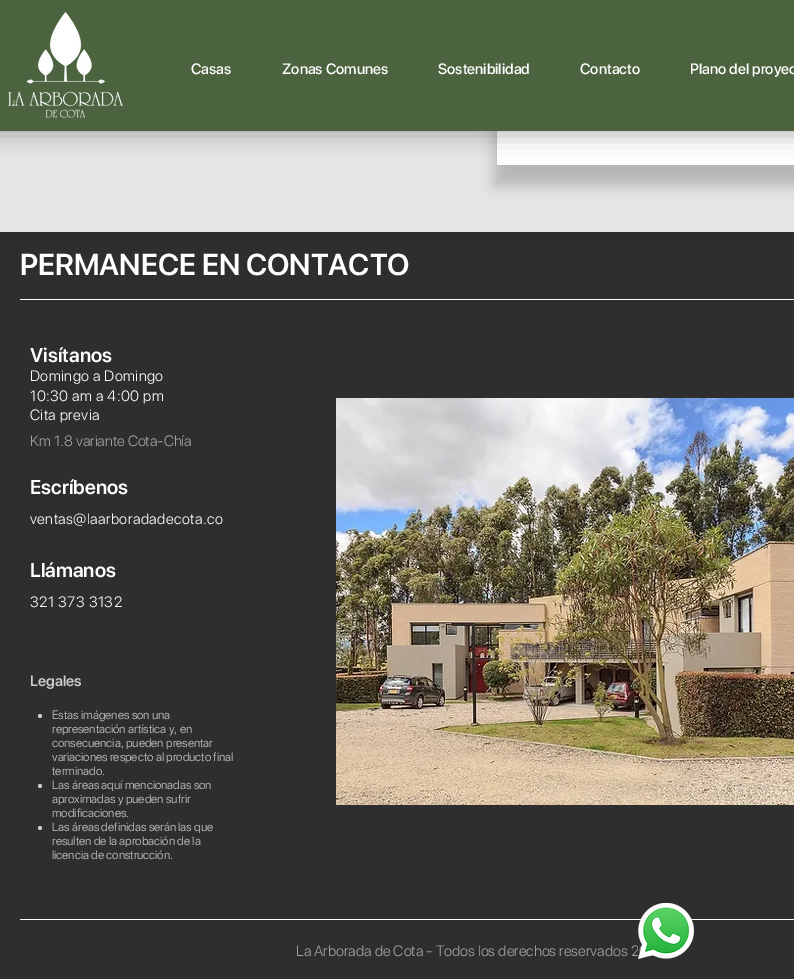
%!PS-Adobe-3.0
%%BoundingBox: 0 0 794 979
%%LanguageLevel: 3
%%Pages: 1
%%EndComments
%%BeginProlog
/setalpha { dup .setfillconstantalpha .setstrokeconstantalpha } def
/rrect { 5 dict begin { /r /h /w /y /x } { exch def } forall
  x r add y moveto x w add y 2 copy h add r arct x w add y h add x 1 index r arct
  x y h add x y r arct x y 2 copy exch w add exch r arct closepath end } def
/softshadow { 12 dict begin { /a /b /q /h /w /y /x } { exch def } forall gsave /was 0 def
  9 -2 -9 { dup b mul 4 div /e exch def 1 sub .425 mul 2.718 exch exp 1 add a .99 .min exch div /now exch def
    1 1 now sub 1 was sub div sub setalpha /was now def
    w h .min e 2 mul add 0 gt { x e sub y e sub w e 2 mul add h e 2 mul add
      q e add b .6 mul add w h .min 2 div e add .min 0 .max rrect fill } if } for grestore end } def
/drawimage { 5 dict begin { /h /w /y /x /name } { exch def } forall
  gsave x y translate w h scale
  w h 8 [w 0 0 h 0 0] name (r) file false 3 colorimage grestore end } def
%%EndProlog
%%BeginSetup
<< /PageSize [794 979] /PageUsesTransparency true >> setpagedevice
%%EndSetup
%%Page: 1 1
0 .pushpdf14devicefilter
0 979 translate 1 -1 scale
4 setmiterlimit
0.902 setgray
0 0 794 979 rectfill
0 setgray
494 -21 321 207 0 7 0.21 softshadow
1 setgray
497 131 297 34 rectfill
0 setgray
-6 -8 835 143 0 11.5 0.29 softshadow
0.294 0.388 0.247 setrgbcolor
0 0 794 131 rectfill
(images/1.raw) 8 12 115 106 drawimage
0.184 0.18 0.18 setrgbcolor
0 232 794 747 rectfill
1 setgray
20 299 774 1 rectfill
(images/2.raw) 336 398 458 407 drawimage
0.8 setgray
newpath 40 716 2 0 360 arc closepath fill
newpath 40 786 2 0 360 arc closepath fill
newpath 40 828 2 0 360 arc closepath fill
1 setgray
20 919 774 1 rectfill
/SFProDisplay-Medium [15 0 0 -15 0 0] selectfont
191 74 moveto (Casas) show
282 74 moveto (Zonas Comunes) show
438 74 moveto (Sostenibilidad) show
580 74 moveto (Contacto) show
690 74 moveto (Plano del proyec) show
/SFProDisplay-SemiBold [30 0 0 -30 0 0] selectfont
20 275 moveto (PERMANECE EN CONTACTO) show
/SFProDisplay-SemiBold [20 0 0 -20 0 0] selectfont
30 362 moveto (Visítanos) show
/SFProDisplay-Light [15 0 0 -15 0 0] selectfont
30 381 moveto 0.45 0 (Domingo a Domingo) ashow
30 401 moveto 0.45 0 (10:30 am a 4:00 pm) ashow
30 420 moveto 0.45 0 (Cita previa) ashow
0.627 0.627 0.624 setrgbcolor
30 446 moveto (Km 1.8 variante Cota-Chía) show
/SFProDisplay-SemiBold [20 0 0 -20 0 0] selectfont
1 setgray
30 494 moveto (Escríbenos) show
/SFProDisplay-Light [15 0 0 -15 0 0] selectfont
30 524 moveto 0.45 0 (ventas@laarboradadecota.co) ashow
/SFProDisplay-SemiBold [20 0 0 -20 0 0] selectfont
30 577 moveto (Llámanos) show
/SFProDisplay-Light [15 0 0 -15 0 0] selectfont
30 607 moveto 0.45 0 (321 373 3132) ashow
/SFProDisplay-SemiBold [15 0 0 -15 0 0] selectfont
0.8 setgray
30 686 moveto (Legales) show
/SFProDisplay-Light [12 0 0 -12 0 0] selectfont
52 719 moveto (Estas imágenes son una) show
52 733 moveto (representación artística y, en) show
52 747 moveto (consecuencia, pueden presentar) show
52 761 moveto (variaciones respecto al producto final) show
52 775 moveto (terminado.) show
52 789 moveto (Las áreas aquí mencionadas son) show
52 803 moveto (aproximadas y pueden sufrir) show
52 817 moveto (modificaciones.) show
52 831 moveto (Las áreas definidas serán las que) show
52 845 moveto (resulten de la aprobación de la) show
52 859 moveto (licencia de construcción.) show
/SFProDisplay-Light [15 0 0 -15 0 0] selectfont
0.627 0.627 0.624 setrgbcolor
296 956 moveto (La Arborada de Cota - Todos los derechos reservados 2) show
(images/3.raw) 638 903 56 56 drawimage
.poppdf14devicefilter showpage
%%EOF
